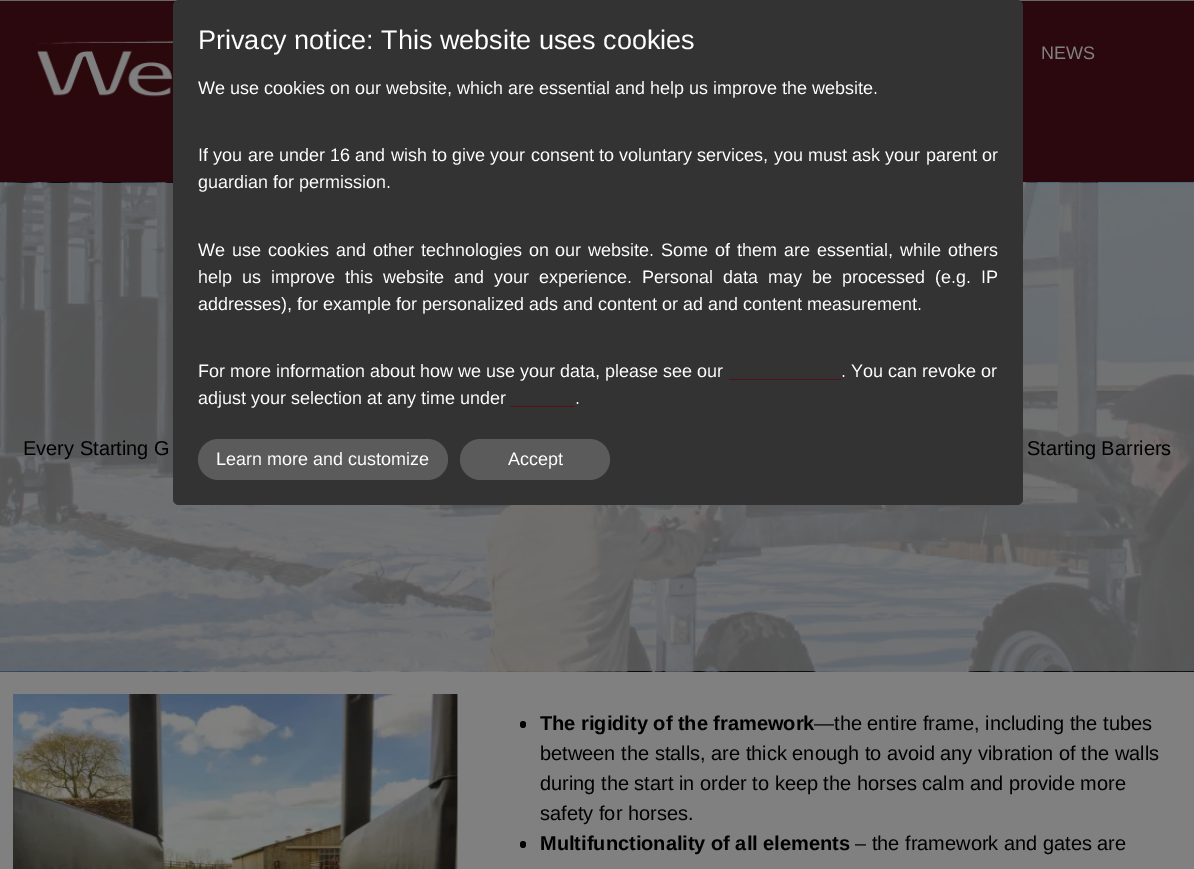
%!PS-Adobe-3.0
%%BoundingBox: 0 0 1194 869
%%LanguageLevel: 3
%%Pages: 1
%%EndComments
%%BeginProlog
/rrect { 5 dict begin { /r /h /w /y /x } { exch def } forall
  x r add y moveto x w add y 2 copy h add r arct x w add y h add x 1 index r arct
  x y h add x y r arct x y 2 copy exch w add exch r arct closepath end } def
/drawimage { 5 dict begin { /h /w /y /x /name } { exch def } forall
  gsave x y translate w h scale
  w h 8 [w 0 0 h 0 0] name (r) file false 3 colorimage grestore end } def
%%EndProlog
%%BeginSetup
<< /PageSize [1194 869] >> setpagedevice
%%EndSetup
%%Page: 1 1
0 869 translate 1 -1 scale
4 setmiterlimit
0.408 setgray
0 0 1194 869 rectfill
0.169 0.031 0.051 setrgbcolor
0 1 1194 181 rectfill
(images/2.raw) 0 182 1194 490 drawimage
0.2 setgray
173 0 850 505 6 rrect fill
0.337 0.063 0.098 setrgbcolor
729 379 112 1 rectfill
510 406 65 1 rectfill
0.357 setgray
198 439 250 41 20.5 rrect fill
460 439 150 41 20.5 rrect fill
(images/1.raw) 37 40 136 57 drawimage
0.502 setgray
0 672 1194 197 rectfill
(images/3.raw) 13 694 445 175 drawimage
0 setgray
520 721 6 7 3 rrect fill
520 841 6 7 3 rrect fill
/LiberationSans-Regular [27 0 0 -27 0 0] selectfont
1 setgray
198 49 moveto (Privacy notice: This website uses cookies) show
/LiberationSans-Regular [18 0 0 -18 0 0] selectfont
198 94 moveto (We use cookies on our website, which are essential and help us improve the website.) show
198 161 moveto 0.25 0 32 (If you are under 16 and wish to give your consent to voluntary services, you must ask your parent or) widthshow
198 188 moveto (guardian for permission.) show
198 256 moveto 1.9 0 32 (We use cookies and other technologies on our website. Some of them are essential, while others) widthshow
198 283 moveto 5 0 32 (help us improve this website and your experience. Personal data may be processed \(e.g. IP) widthshow
198 310 moveto (addresses\), for example for personalized ads and content or ad and content measurement.) show
198 377 moveto (For more information about how we use your data, please see our) show
841 377 moveto (. You can revoke or) show
198 404 moveto (adjust your selection at any time under) show
575 404 moveto (.) show
216 465 moveto (Learn more and customize) show
508 465 moveto (Accept) show
0.502 setgray
1041 59 moveto (NEWS) show
/LiberationSans-Regular [20 0 0 -20 0 0] selectfont
0 setgray
23 455 moveto (Every Starting G) show
1027 455 moveto (Starting Barriers) show
/LiberationSans-Bold [20 0 0 -20 0 0] selectfont
540 730 moveto (The rigidity of the framework) show
/LiberationSans-Regular [20 0 0 -20 0 0] selectfont
814 730 moveto (—the entire frame, including the tubes) show
540 760 moveto (between the stalls, are thick enough to avoid any vibration of the walls) show
540 790 moveto (during the start in order to keep the horses calm and provide more) show
540 820 moveto (safety for horses.) show
/LiberationSans-Bold [20 0 0 -20 0 0] selectfont
540 850 moveto (Multifunctionality of all elements) show
/LiberationSans-Regular [20 0 0 -20 0 0] selectfont
855 850 moveto (– the framework and gates are) show
showpage
%%EOF
